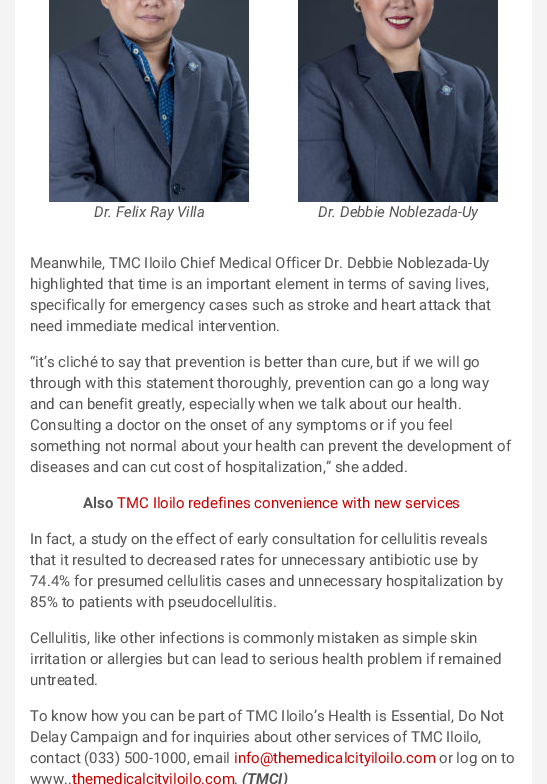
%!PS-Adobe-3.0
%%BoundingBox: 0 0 547 784
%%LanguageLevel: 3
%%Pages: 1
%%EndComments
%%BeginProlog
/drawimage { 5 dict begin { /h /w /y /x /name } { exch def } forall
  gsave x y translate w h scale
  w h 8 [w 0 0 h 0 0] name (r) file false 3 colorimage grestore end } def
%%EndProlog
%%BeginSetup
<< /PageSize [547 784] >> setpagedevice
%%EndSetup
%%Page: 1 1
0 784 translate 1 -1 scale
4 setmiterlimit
0.957 setgray
0 0 547 784 rectfill
1 setgray
15 0 517 784 rectfill
(images/1.raw) 49 0 200 202 drawimage
(images/2.raw) 298 0 200 202 drawimage
/Roboto-Italic [15 0 0 -15 0 0] selectfont
0.333 setgray
94 217 moveto (Dr. Felix Ray Villa) show
318 217 moveto (Dr. Debbie Noblezada-Uy) show
/Roboto-Regular [15 0 0 -15 0 0] selectfont
30 268 moveto (Meanwhile, TMC Iloilo Chief Medical Officer Dr. Debbie Noblezada-Uy) show
30 289 moveto (highlighted that time is an important element in terms of saving lives,) show
30 310 moveto (specifically for emergency cases such as stroke and heart attack that) show
30 331 moveto (need immediate medical intervention.) show
30 367 moveto (“it’s cliché to say that prevention is better than cure, but if we will go) show
30 388 moveto (through with this statement thoroughly, prevention can go a long way) show
30 409 moveto (and can benefit greatly, especially when we talk about our health.) show
30 430 moveto (Consulting a doctor on the onset of any symptoms or if you feel) show
30 451 moveto (something not normal about your health can prevent the development of) show
30 472 moveto (diseases and can cut cost of hospitalization,” she added.) show
/Roboto-Bold [15 0 0 -15 0 0] selectfont
83 508 moveto (Also) show
/Roboto-Regular [15 0 0 -15 0 0] selectfont
0.784 0 0 setrgbcolor
117 508 moveto (TMC Iloilo redefines convenience with new services) show
0.333 setgray
30 544 moveto (In fact, a study on the effect of early consultation for cellulitis reveals) show
30 565 moveto (that it resulted to decreased rates for unnecessary antibiotic use by) show
30 586 moveto (74.4% for presumed cellulitis cases and unnecessary hospitalization by) show
30 607 moveto (85% to patients with pseudocellulitis.) show
30 643 moveto (Cellulitis, like other infections is commonly mistaken as simple skin) show
30 664 moveto (irritation or allergies but can lead to serious health problem if remained) show
30 685 moveto (untreated.) show
30 721 moveto (To know how you can be part of TMC Iloilo’s Health is Essential, Do Not) show
30 742 moveto (Delay Campaign and for inquiries about other services of TMC Iloilo,) show
30 763 moveto (contact \(033\) 500-1000, email) show
0.784 0 0 setrgbcolor
234 763 moveto (info@themedicalcityiloilo.com) show
0.333 setgray
439 763 moveto (or log on to) show
30 784 moveto (www..) show
0.784 0 0 setrgbcolor
72 784 moveto (themedicalcityiloilo.com) show
0.333 setgray
234 784 moveto (.) show
/Roboto-BoldItalic [15 0 0 -15 0 0] selectfont
242 784 moveto (\(TMCI\)) show
showpage
%%EOF
